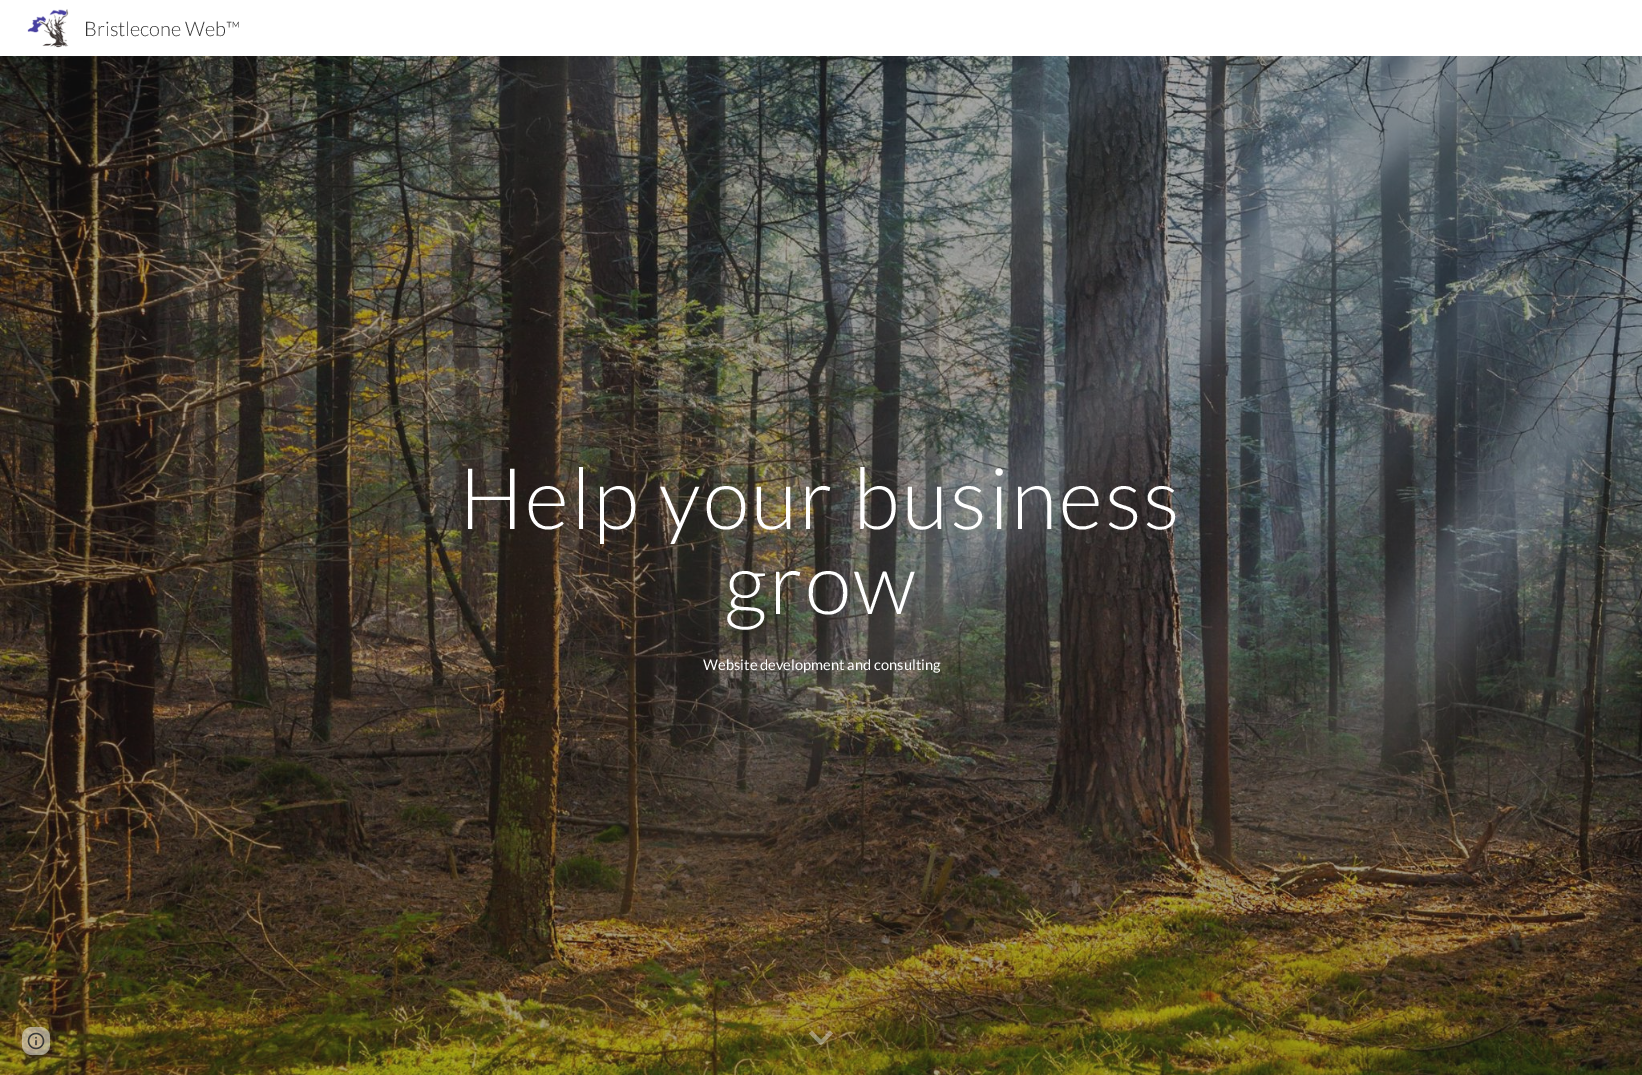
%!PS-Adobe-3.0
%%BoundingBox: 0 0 1642 1075
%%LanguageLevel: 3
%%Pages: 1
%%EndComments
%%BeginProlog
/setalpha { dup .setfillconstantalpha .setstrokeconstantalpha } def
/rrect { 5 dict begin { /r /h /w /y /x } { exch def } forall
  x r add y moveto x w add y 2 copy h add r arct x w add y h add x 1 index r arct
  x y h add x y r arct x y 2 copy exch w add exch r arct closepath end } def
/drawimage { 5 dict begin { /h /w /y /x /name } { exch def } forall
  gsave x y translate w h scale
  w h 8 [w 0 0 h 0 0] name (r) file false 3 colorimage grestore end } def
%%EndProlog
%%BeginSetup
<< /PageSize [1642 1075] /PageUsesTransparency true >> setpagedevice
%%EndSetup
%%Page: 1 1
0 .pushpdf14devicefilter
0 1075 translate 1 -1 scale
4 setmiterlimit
1 setgray
0 0 1642 1075 rectfill
(images/1.raw) 27 9 42 39 drawimage
(images/2.raw) 0 56 1642 1019 drawimage
0.4 setalpha
newpath 812 1030.5 moveto 821 1040 lineto 830 1030.5 lineto 833 1033.5 lineto 821 1045.5 lineto 809 1033.5 lineto closepath fill
0.5 setalpha
22 1027 28 28 10 rrect fill
1 setalpha
(images/3.raw) 27 1032 18 18 drawimage
/Lato-Light [20 0 0 -20 0 0] selectfont
0.2 setgray
84 36 moveto (Bristlecone Web™) show
/Lato-Light [85.25 0 0 -85.25 0 0] selectfont
1 setgray
459 529 moveto 2 0 (Help your business) ashow
724 614 moveto 2 0 (grow) ashow
/Lato-Regular [14.7 0 0 -14.7 0 0] selectfont
703 670 moveto (Website development and consulting) show
.poppdf14devicefilter showpage
%%EOF
